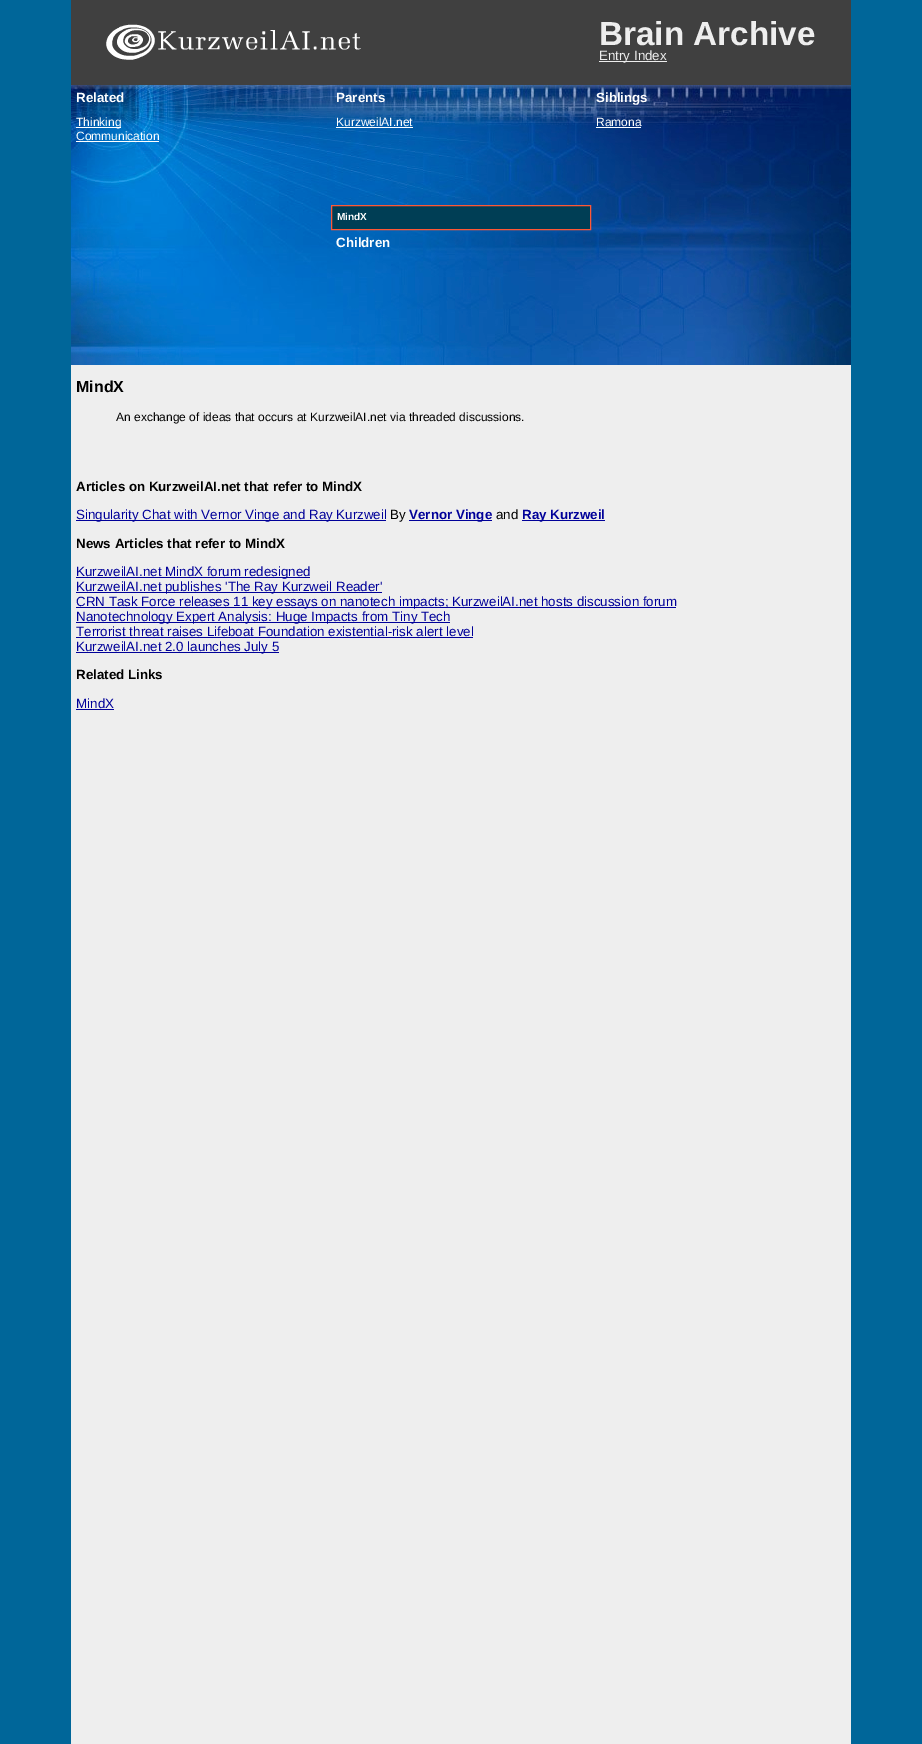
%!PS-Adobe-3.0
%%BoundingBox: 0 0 922 1744
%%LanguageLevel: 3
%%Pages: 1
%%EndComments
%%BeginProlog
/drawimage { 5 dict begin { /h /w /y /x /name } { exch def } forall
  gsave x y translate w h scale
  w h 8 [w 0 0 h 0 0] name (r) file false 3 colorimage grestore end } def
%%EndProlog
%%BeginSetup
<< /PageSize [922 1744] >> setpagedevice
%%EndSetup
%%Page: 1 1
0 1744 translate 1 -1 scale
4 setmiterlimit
0 0.4 0.6 setrgbcolor
0 0 922 1744 rectfill
0.251 setgray
71 0 780 85 rectfill
(images/1.raw) 106 24 255 36 drawimage
0.933 setgray
599 61 68 1 rectfill
(images/2.raw) 71 85 780 280 drawimage
1 setgray
76 127 45 1 rectfill
76 141 83 1 rectfill
336 127 77 1 rectfill
0 0.243 0.333 setrgbcolor
newpath 331.5 205.5 moveto 590.5 205.5 lineto 590.5 229.5 lineto 331.5 229.5 lineto closepath gsave fill grestore
1 0.341 0.208 setrgbcolor
stroke
1 setgray
596 127 45 1 rectfill
0.933 setgray
71 365 780 1379 rectfill
0 0 0.6 setrgbcolor
76 520 310 1 rectfill
409 520 83 1 rectfill
522 520 83 1 rectfill
76 577 234 1 rectfill
76 592 306 1 rectfill
76 607 600 1 rectfill
76 622 374 1 rectfill
76 637 397 1 rectfill
76 652 203 1 rectfill
76 709 38 1 rectfill
/LiberationSans-Bold [33.25 0 0 -33.25 0 0] selectfont
0.933 setgray
599 45 moveto (Brain Archive) show
/LiberationSans-Regular [13.35 0 0 -13.35 0 0] selectfont
599 60 moveto (Entry Index) show
/LiberationSans-Bold [13.35 0 0 -13.35 0 0] selectfont
1 setgray
76 102 moveto (Related) show
/LiberationSans-Regular [12 0 0 -12 0 0] selectfont
76 126 moveto (Thinking) show
76 140 moveto (Communication) show
/LiberationSans-Bold [13.35 0 0 -13.35 0 0] selectfont
336 102 moveto (Parents) show
/LiberationSans-Regular [12 0 0 -12 0 0] selectfont
336 126 moveto (KurzweilAI.net) show
/LiberationSans-Bold [10 0 0 -10 0 0] selectfont
337 220 moveto (MindX) show
/LiberationSans-Bold [13.35 0 0 -13.35 0 0] selectfont
336 247 moveto (Children) show
596 102 moveto (Siblings) show
/LiberationSans-Regular [12 0 0 -12 0 0] selectfont
596 126 moveto (Ramona) show
/LiberationSans-Bold [16 0 0 -16 0 0] selectfont
0 setgray
76 392 moveto (MindX) show
/LiberationSans-Regular [12 0 0 -12 0 0] selectfont
116 421 moveto (An exchange of ideas that occurs at KurzweilAI.net via threaded discussions.) show
/LiberationSans-Bold [13.35 0 0 -13.35 0 0] selectfont
76 491 moveto (Articles on KurzweilAI.net that refer to MindX) show
/LiberationSans-Regular [13.35 0 0 -13.35 0 0] selectfont
0 0 0.6 setrgbcolor
76 519 moveto (Singularity Chat with Vernor Vinge and Ray Kurzweil) show
0 setgray
390 519 moveto (By) show
/LiberationSans-Bold [13.35 0 0 -13.35 0 0] selectfont
0 0 0.6 setrgbcolor
409 519 moveto (Vernor Vinge) show
/LiberationSans-Regular [13.35 0 0 -13.35 0 0] selectfont
0 setgray
496 519 moveto (and) show
/LiberationSans-Bold [13.35 0 0 -13.35 0 0] selectfont
0 0 0.6 setrgbcolor
522 519 moveto (Ray Kurzweil) show
0 setgray
76 548 moveto (News Articles that refer to MindX) show
/LiberationSans-Regular [13.35 0 0 -13.35 0 0] selectfont
0 0 0.6 setrgbcolor
76 576 moveto (KurzweilAI.net MindX forum redesigned) show
76 591 moveto (KurzweilAI.net publishes 'The Ray Kurzweil Reader') show
76 606 moveto (CRN Task Force releases 11 key essays on nanotech impacts; KurzweilAI.net hosts discussion forum) show
76 621 moveto (Nanotechnology Expert Analysis: Huge Impacts from Tiny Tech) show
76 636 moveto (Terrorist threat raises Lifeboat Foundation existential-risk alert level) show
76 651 moveto (KurzweilAI.net 2.0 launches July 5) show
/LiberationSans-Bold [13.35 0 0 -13.35 0 0] selectfont
0 setgray
76 679 moveto (Related Links) show
/LiberationSans-Regular [13.35 0 0 -13.35 0 0] selectfont
0 0 0.6 setrgbcolor
76 708 moveto (MindX) show
showpage
%%EOF
